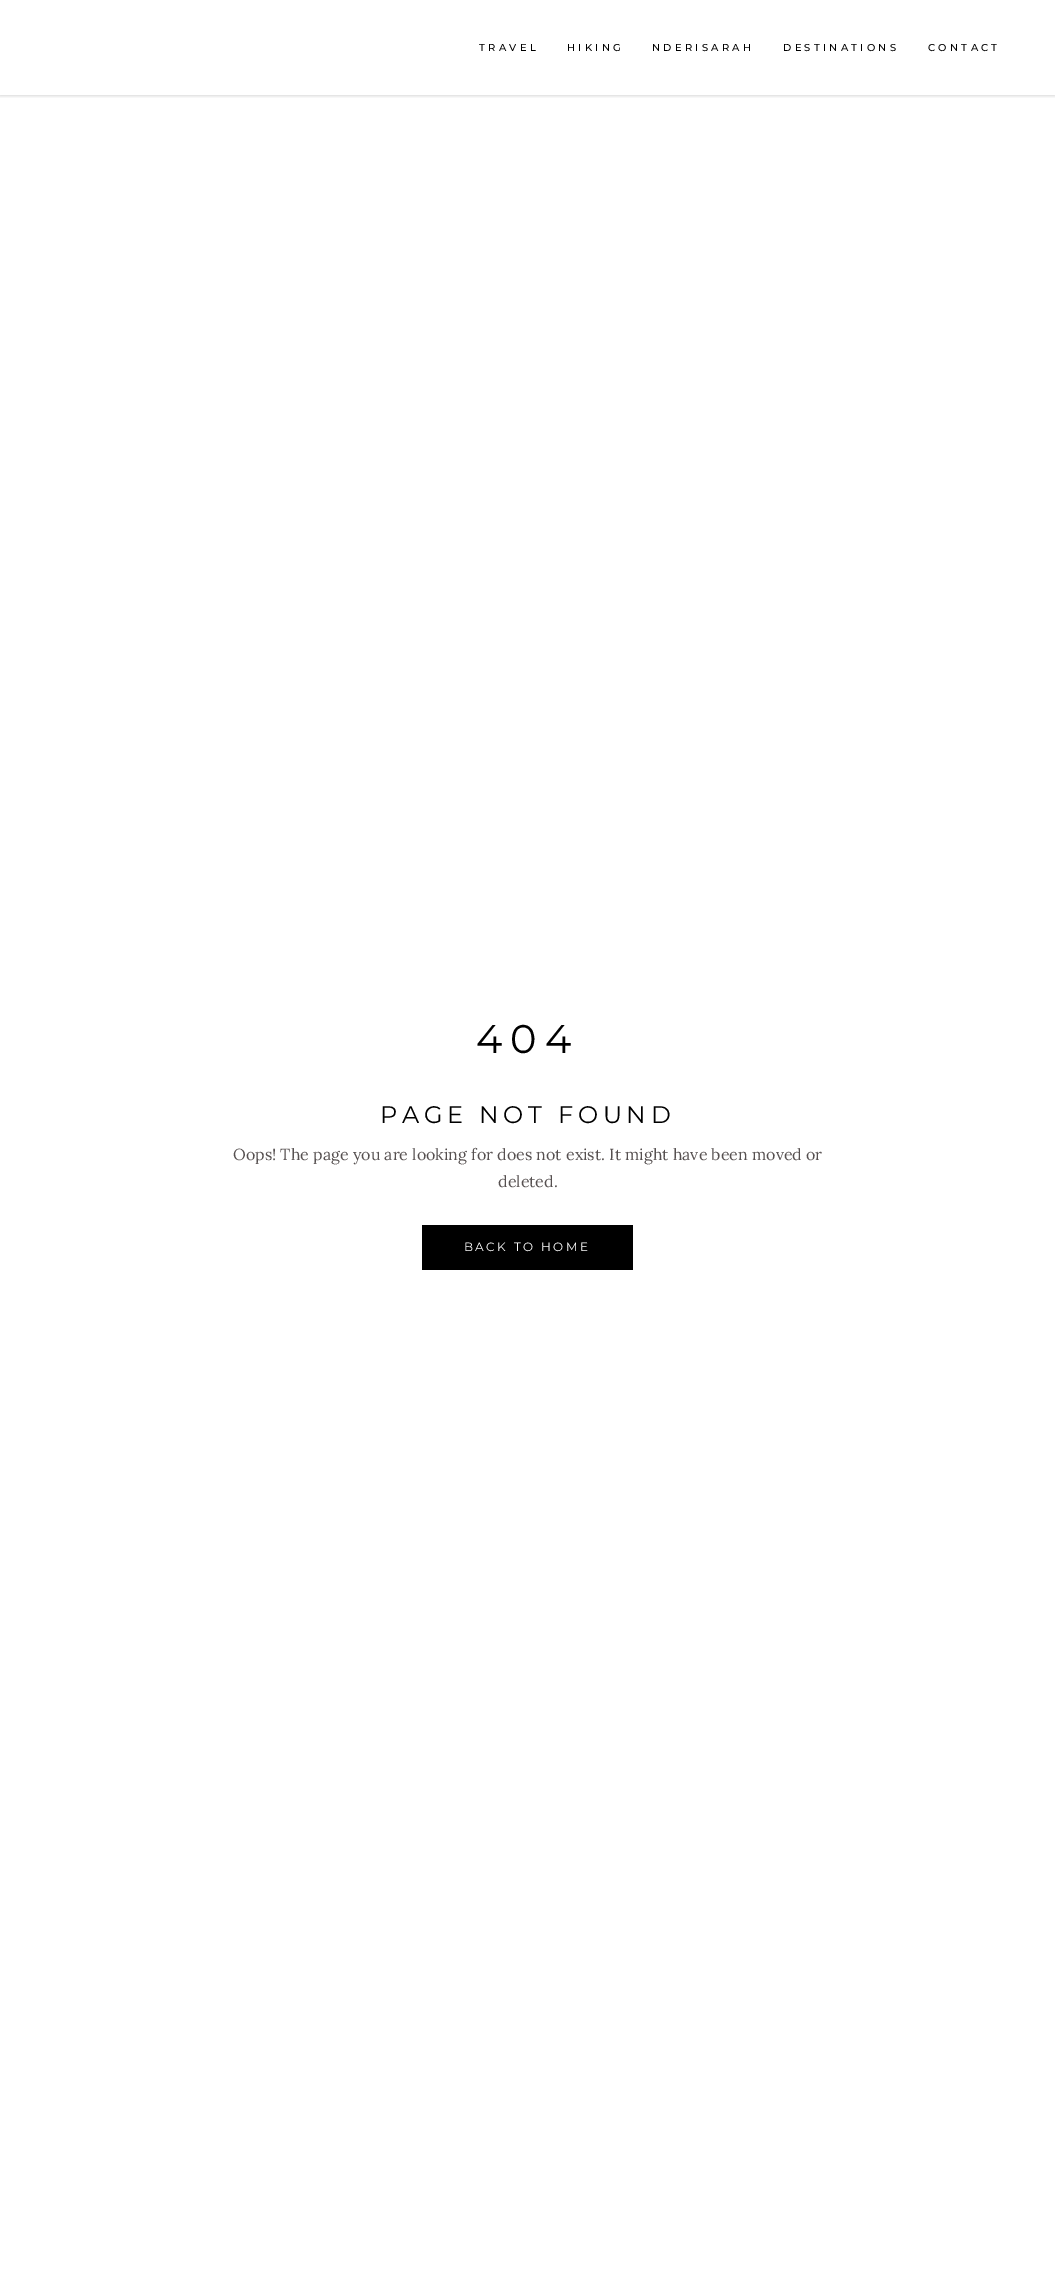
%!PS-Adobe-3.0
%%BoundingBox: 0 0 1055 2284
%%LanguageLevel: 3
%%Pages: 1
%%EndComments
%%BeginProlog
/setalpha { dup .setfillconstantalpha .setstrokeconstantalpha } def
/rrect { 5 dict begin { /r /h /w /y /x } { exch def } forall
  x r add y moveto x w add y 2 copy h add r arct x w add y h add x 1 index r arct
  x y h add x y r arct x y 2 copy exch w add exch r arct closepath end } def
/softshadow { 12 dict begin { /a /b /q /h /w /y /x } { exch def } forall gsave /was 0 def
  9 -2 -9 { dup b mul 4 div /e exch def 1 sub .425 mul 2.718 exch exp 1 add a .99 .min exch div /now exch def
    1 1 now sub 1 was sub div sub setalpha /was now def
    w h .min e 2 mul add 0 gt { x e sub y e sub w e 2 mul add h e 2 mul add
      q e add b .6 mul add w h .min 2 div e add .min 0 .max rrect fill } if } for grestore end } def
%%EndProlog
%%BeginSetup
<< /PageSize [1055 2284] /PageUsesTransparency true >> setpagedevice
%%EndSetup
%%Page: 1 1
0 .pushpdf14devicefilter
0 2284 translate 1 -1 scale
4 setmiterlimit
1 setgray
0 0 1055 2284 rectfill
gsave
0 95 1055 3 rectclip
0 setgray
0 1 1055 95 0 1.5 0.15 softshadow
grestore
0 setgray
422 1225 211 45 rectfill
/Montserrat-Medium [10 0 0 -10 0 0] selectfont
479 51 moveto 3.25 0 (TRAVEL) ashow
567 51 moveto 3.25 0 (HIKING) ashow
652 51 moveto 3.25 0 (NDERISARAH) ashow
783 51 moveto 3.25 0 (DESTINATIONS) ashow
928 51 moveto 3.25 0 (CONTACT) ashow
/Montserrat-Regular [40 0 0 -40 0 0] selectfont
476 1053 moveto 8 0 (404) ashow
/Montserrat-Regular [24 0 0 -24 0 0] selectfont
380 1123 moveto 4.75 0 (PAGE NOT FOUND) ashow
/Lora-Regular [16 0 0 -16 0 0] selectfont
0.337 0.314 0.314 setrgbcolor
233 1160 moveto (Oops! The page you are looking for does not exist. It might have been moved or) show
498 1187 moveto (deleted.) show
/Montserrat-Regular [12 0 0 -12 0 0] selectfont
1 setgray
464 1251 moveto 2.4 0 (BACK TO HOME) ashow
.poppdf14devicefilter showpage
%%EOF
